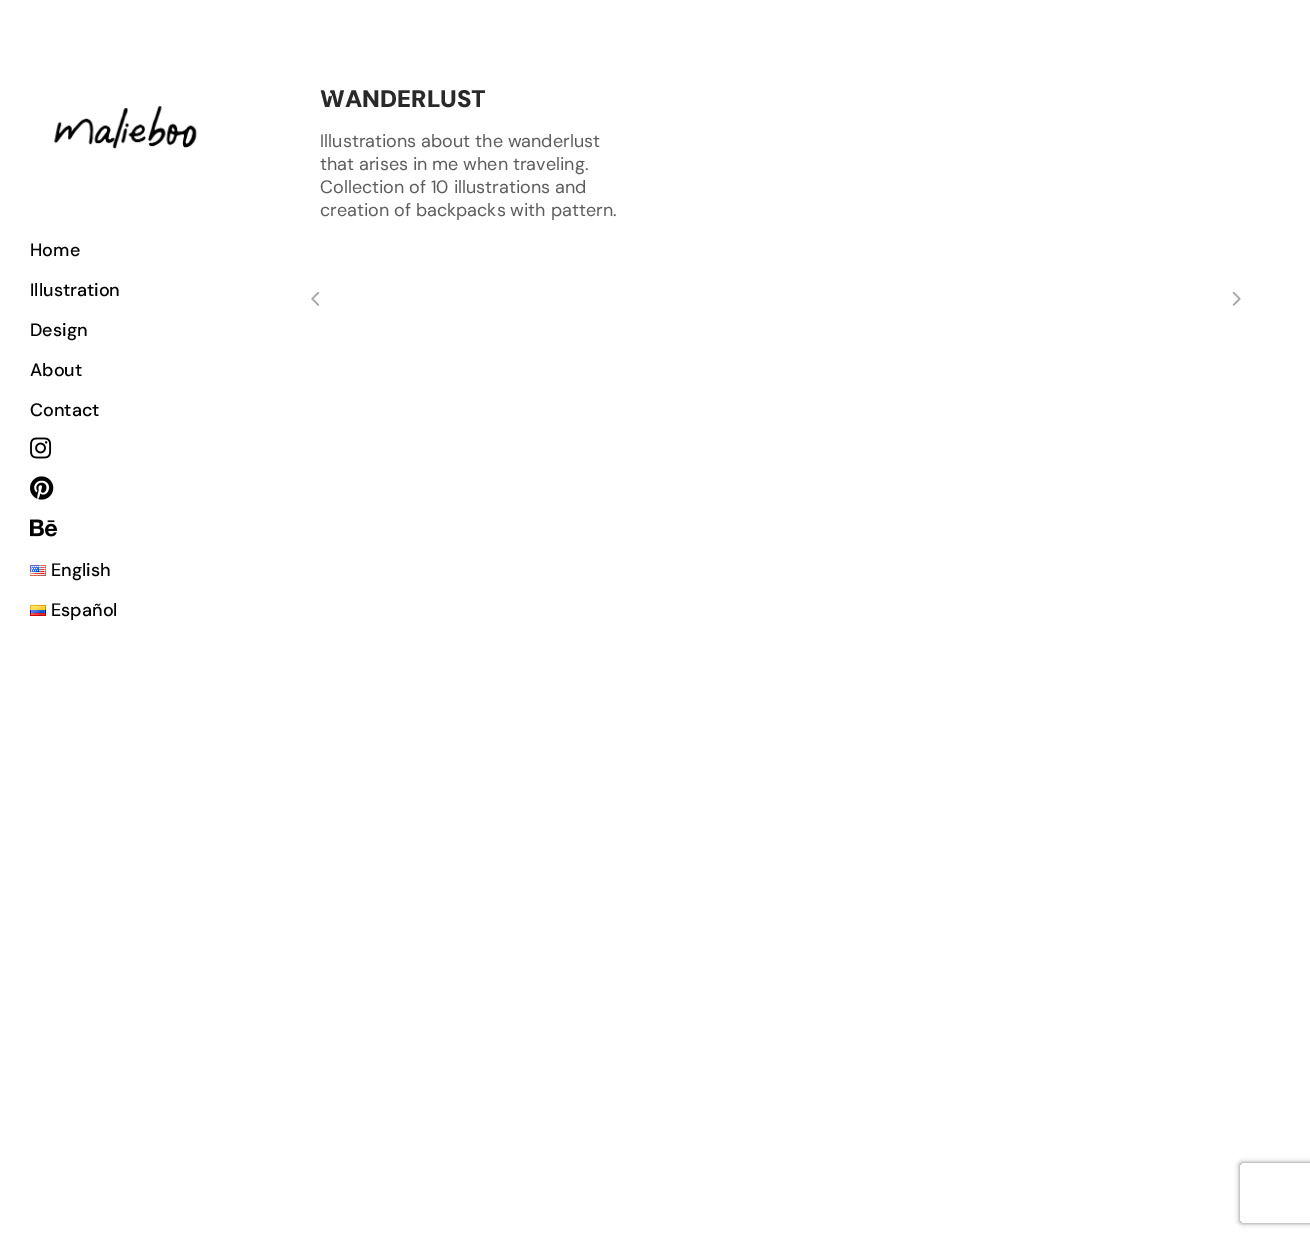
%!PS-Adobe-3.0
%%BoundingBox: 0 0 1310 1237
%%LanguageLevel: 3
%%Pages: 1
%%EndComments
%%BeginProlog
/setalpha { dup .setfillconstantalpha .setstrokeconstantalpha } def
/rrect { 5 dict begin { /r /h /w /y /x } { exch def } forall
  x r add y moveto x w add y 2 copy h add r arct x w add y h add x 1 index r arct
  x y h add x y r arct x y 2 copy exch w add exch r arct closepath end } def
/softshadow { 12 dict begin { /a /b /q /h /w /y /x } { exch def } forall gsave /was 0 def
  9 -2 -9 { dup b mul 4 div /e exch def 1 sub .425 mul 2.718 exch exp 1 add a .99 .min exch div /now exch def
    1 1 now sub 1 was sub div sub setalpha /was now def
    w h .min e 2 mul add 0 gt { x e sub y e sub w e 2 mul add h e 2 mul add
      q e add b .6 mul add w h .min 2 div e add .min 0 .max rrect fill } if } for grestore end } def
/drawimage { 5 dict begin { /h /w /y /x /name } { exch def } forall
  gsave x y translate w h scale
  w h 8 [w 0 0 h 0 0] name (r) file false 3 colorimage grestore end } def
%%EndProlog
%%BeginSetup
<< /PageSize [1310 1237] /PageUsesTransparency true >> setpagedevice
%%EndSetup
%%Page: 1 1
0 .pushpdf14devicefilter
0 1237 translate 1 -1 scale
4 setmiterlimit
1 setgray
0 0 1310 1237 rectfill
(images/2.raw) 311 291 9 15 drawimage
(images/3.raw) 1232 291 9 15 drawimage
(images/4.raw) 54 106 143 43 drawimage
(images/5.raw) 30 437 22 22 drawimage
(images/6.raw) 30 476 24 24 drawimage
(images/7.raw) 30 519 27 18 drawimage
(images/8.raw) 30 565 16 11 drawimage
(images/9.raw) 30 605 16 11 drawimage
gsave
newpath 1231 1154 moveto 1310 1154 lineto 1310 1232 lineto 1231 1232 lineto closepath 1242 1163 moveto 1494 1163 lineto 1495 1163 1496 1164 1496 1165 curveto 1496 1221 lineto 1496 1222 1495 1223 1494 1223 curveto 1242 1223 lineto 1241 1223 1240 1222 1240 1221 curveto 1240 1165 lineto 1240 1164 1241 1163 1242 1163 curveto closepath eoclip newpath
0.502 setgray
1240 1163 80 60 2 2.5 1 softshadow
grestore
/DMSans-Black [24 0 0 -24 0 0] selectfont
0.161 setgray
320 107 moveto (WANDERLUST) show
/DMSans-Regular [18 0 0 -18 0 0] selectfont
0.357 setgray
320 147 moveto (Illustrations about the wanderlust) show
320 170 moveto (that arises in me when traveling.) show
320 193 moveto (Collection of 10 illustrations and) show
320 216 moveto (creation of backpacks with pattern.) show
(images/1.raw) 323 90 9 7 drawimage
/DMSans-Medium [18 0 0 -18 0 0] selectfont
0 setgray
30 256 moveto (Home) show
30 296 moveto (Illustration) show
30 336 moveto (Design) show
30 376 moveto (About) show
30 416 moveto (Contact) show
51 576 moveto (English) show
51 616 moveto (Español) show
.poppdf14devicefilter showpage
%%EOF
